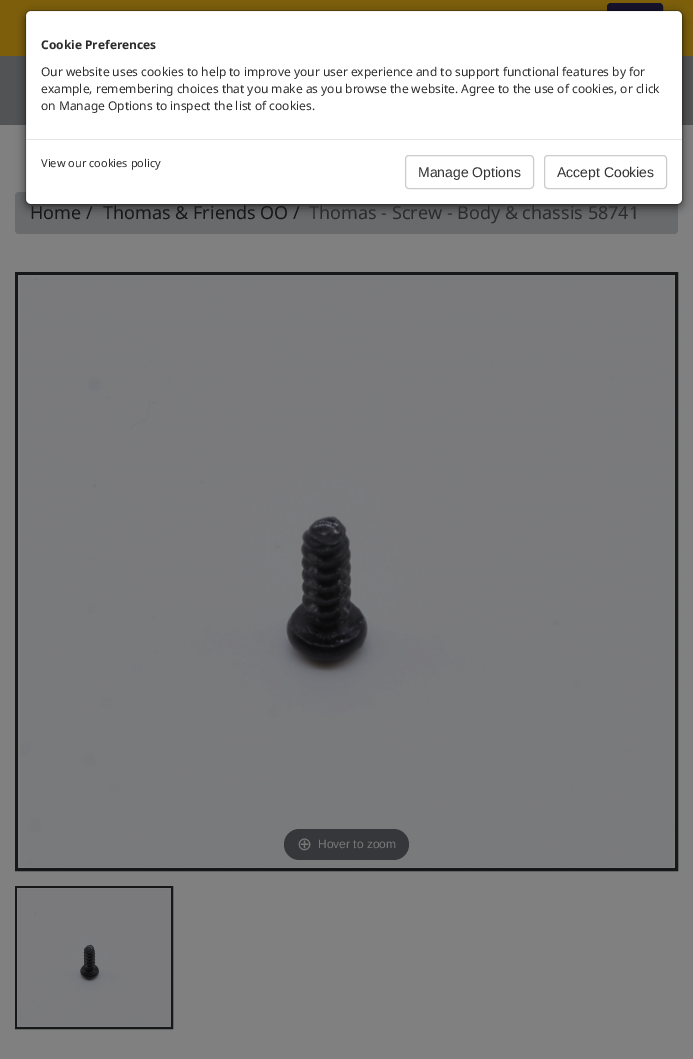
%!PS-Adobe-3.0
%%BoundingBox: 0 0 693 1059
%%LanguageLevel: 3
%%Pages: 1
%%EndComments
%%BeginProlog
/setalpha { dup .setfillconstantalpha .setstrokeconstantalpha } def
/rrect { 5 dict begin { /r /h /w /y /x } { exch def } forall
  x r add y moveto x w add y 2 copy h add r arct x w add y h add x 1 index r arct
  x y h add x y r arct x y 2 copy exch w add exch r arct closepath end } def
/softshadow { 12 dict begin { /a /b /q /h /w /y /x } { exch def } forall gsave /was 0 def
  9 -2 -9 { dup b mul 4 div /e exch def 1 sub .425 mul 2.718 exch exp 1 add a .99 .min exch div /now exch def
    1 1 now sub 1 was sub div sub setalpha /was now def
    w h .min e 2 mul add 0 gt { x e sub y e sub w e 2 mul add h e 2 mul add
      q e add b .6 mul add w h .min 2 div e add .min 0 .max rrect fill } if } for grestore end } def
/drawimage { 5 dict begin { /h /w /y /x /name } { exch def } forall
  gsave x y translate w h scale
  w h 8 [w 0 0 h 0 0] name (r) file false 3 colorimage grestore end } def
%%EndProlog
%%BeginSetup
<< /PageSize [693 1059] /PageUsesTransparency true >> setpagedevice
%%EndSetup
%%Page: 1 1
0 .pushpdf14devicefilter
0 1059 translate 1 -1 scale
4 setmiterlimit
0.502 setgray
0 0 693 1059 rectfill
0.49 0.373 0.043 setrgbcolor
0 0 693 56 rectfill
0.082 0.071 0.173 setrgbcolor
607.5 3.5 55 51 3.5 rrect gsave fill grestore
stroke
0.322 0.325 0.329 setrgbcolor
0 56 693 69 rectfill
0.412 0.416 0.42 setrgbcolor
15 192 663 42 4 rrect fill
0 setgray
25 13 658 195 6 4.5 0.5 softshadow
1 setgray
26 11 656 193 5 rrect fill
0.2 setalpha
0 setgray
25.5 10.5 657 194 5.5 rrect stroke
1 setalpha
0.898 setgray
26 139 656 1 rectfill
0.8 setgray
405.5 155.5 128 33 3.5 rrect stroke
544.5 155.5 122 33 3.5 rrect stroke
0.082 0.09 0.094 setrgbcolor
3 setlinewidth
16.5 273.5 660 596 rectstroke
(images/1.raw) 18 275 657 593 drawimage
0.7 setalpha
0.098 0.102 0.122 setrgbcolor
284 829 125 31 15.5 rrect fill
1 setalpha
0.082 0.09 0.094 setrgbcolor
2 setlinewidth
16 887 156 141 rectstroke
(images/2.raw) 17 888 154 139 drawimage
/NotoSans-Bold [12 0 0 -12 0 0] selectfont
0.169 setgray
41 49 moveto (Cookie Preferences) show
/NotoSans-Regular [12 0 0 -12 0 0] selectfont
41 76 moveto (Our website uses cookies to help to improve your user experience and to support functional features by for) show
41 93 moveto (example, remembering choices that you make as you browse the website. Agree to the use of cookies, or click) show
41 110 moveto (on Manage Options to inspect the list of cookies.) show
/NotoSans-Regular [11 0 0 -11 0 0] selectfont
41 167 moveto (View our cookies policy) show
/LiberationSans-Regular [14 0 0 -14 0 0] selectfont
0.2 setgray
418 177 moveto (Manage Options) show
557 177 moveto (Accept Cookies) show
/NotoSans-Regular [18 0 0 -18 0 0] selectfont
0.082 0.09 0.094 setrgbcolor
30 219 moveto (Home) show
86 219 moveto (/) show
103 219 moveto (Thomas & Friends OO) show
293 219 moveto (/) show
0.169 setgray
309 219 moveto (Thomas - Screw - Body & chassis 58741) show
/DejaVuSans-Regular [18 0 0 -18 0 0] selectfont
0.467 setgray
297 850 moveto (⊕) show
/LiberationSans-Regular [12 0 0 -12 0 0] selectfont
318 848 moveto (Hover to zoom) show
.poppdf14devicefilter showpage
%%EOF
